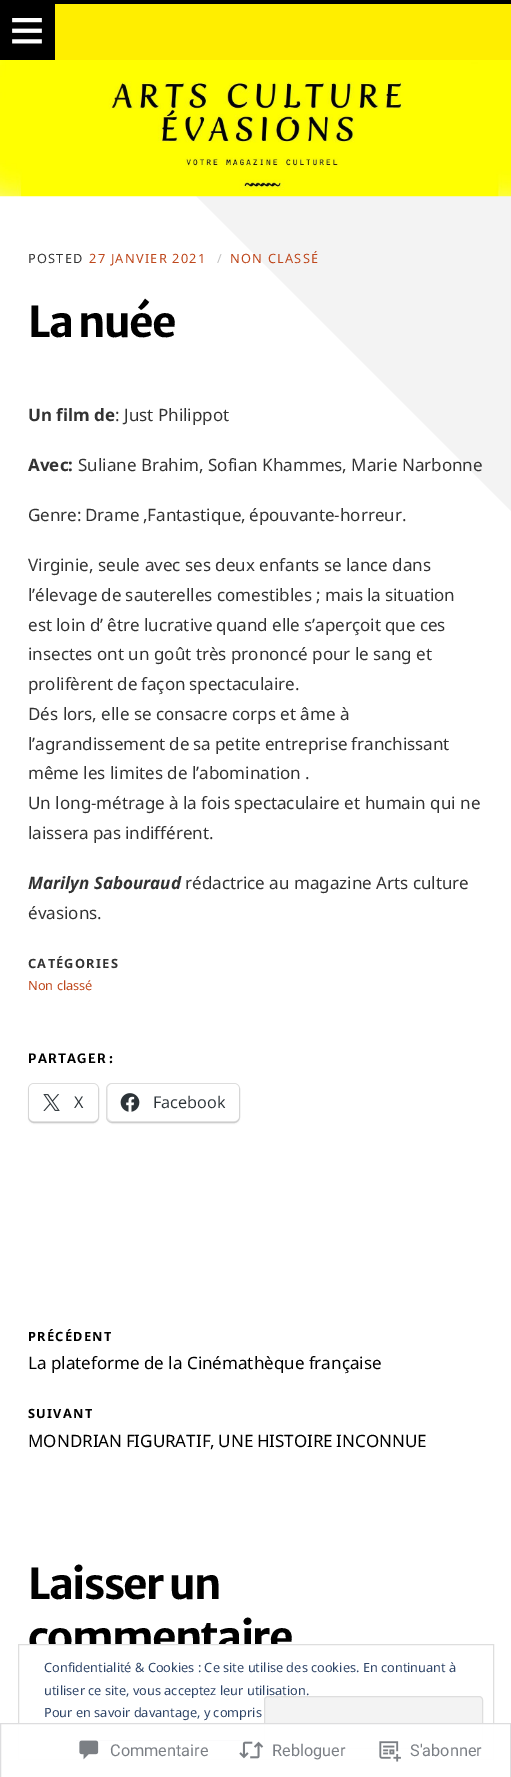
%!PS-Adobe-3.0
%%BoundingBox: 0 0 511 1777
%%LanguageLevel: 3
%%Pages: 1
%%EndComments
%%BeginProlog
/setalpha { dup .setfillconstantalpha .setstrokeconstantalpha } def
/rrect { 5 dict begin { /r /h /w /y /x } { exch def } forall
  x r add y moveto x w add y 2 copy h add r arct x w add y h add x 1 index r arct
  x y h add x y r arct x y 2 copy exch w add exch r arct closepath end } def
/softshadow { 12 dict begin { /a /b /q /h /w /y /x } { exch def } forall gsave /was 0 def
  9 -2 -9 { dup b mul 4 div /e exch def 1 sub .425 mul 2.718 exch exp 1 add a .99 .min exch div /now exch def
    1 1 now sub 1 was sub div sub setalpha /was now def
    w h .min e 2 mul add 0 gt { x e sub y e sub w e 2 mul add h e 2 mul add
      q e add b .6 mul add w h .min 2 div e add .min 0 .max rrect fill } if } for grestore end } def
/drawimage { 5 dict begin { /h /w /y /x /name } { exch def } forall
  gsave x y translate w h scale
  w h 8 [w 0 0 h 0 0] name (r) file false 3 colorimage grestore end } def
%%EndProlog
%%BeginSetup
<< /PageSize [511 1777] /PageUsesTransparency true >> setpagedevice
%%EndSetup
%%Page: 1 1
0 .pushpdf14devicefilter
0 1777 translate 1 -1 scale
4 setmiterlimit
1 setgray
0 0 511 1777 rectfill
0.953 setgray
newpath 511 511 moveto 511 0 lineto 0 0 lineto closepath eofill
0 setgray
0 0 511 4 rectfill
1 0.933 0 setrgbcolor
55 4 456 56 rectfill
0 setgray
0 4 55 56 rectfill
(images/1.raw) 12 18 30 26 drawimage
(images/2.raw) 0 60 511 137 drawimage
0.878 setgray
28.5 1083.5 70 39 5.5 rrect stroke
0 setgray
29 1085 69 38 5 1 0.12 softshadow
1 setgray
29 1084 69 37 5 rrect fill
(images/3.raw) 43 1094 17 17 drawimage
0.878 setgray
106.5 1083.5 133 39 5.5 rrect stroke
0 setgray
108 1085 131 38 5 1 0.12 softshadow
1 setgray
108 1084 131 37 5 rrect fill
(images/4.raw) 120 1093 20 19 drawimage
0.949 setgray
0 1768 511 9 rectfill
/NotoSans-Regular [12.75 0 0 -12.75 0 0] selectfont
0.2 setgray
28 263 moveto 1.25 0 (POSTED) ashow
0.745 0.278 0.11 setrgbcolor
89 263 moveto 1.25 0 (27 JANVIER 2021) ashow
0.761 setgray
217 263 moveto 1.25 0 (/) ashow
0.745 0.278 0.11 setrgbcolor
230 263 moveto 1.25 0 (NON CLASSÉ) ashow
/MerriweatherSans-Bold [42.5 0 0 -42.5 0 0] selectfont
0 setgray
28 337 moveto -1.75 0 (La nuée) ashow
/NotoSans-Bold [17 0 0 -17 0 0] selectfont
0.2 setgray
28 421 moveto (Un film de) show
/NotoSans-Regular [17 0 0 -17 0 0] selectfont
115 421 moveto (: Just Philippot) show
/NotoSans-Bold [17 0 0 -17 0 0] selectfont
28 471 moveto (Avec:) show
/NotoSans-Regular [17 0 0 -17 0 0] selectfont
78 471 moveto (Suliane Brahim, Sofian Khammes, Marie Narbonne) show
28 521 moveto -1 0 32 (Genre: Drame ,Fantastique, épouvante-horreur.) widthshow
28 571 moveto (Virginie, seule avec ses deux enfants se lance dans) show
28 601 moveto -0.25 0 32 (l’élevage de sauterelles comestibles ; mais la situation) widthshow
28 631 moveto -0.25 0 32 (est loin d’ être lucrative quand elle s’aperçoit que ces) widthshow
28 660 moveto (insectes ont un goût très prononcé pour le sang et) show
28 690 moveto -0.5 0 32 (prolifèrent de façon spectaculaire.) widthshow
28 720 moveto (Dés lors, elle se consacre corps et âme à) show
28 750 moveto -0.5 0 32 (l’agrandissement de sa petite entreprise franchissant) widthshow
28 779 moveto (même les limites de l’abomination .) show
28 809 moveto (Un long-métrage à la fois spectaculaire et humain qui ne) show
28 839 moveto -0.5 0 32 (laissera pas indifférent.) widthshow
/NotoSans-BoldItalic [17 0 0 -17 0 0] selectfont
28 889 moveto (Marilyn Sabouraud) show
/NotoSans-Regular [17 0 0 -17 0 0] selectfont
185 889 moveto (rédactrice au magazine Arts culture) show
28 919 moveto (évasions.) show
/NotoSans-Bold [12.75 0 0 -12.75 0 0] selectfont
28 968 moveto 1.25 0 (CATÉGORIES) ashow
/NotoSans-Regular [12.75 0 0 -12.75 0 0] selectfont
0.745 0.278 0.11 setrgbcolor
28 990 moveto (Non classé) show
/MerriweatherSans-Bold [12.75 0 0 -12.75 0 0] selectfont
0 setgray
28 1063 moveto -1 0 32 1.25 0 (PARTAGER :) awidthshow
/OpenSans-Regular [16.25 0 0 -16.25 0 0] selectfont
0.173 0.2 0.22 setrgbcolor
74 1108 moveto (X) show
153 1108 moveto (Facebook) show
/NotoSans-Bold [12.75 0 0 -12.75 0 0] selectfont
0 setgray
28 1341 moveto 1.25 0 (PRÉCÉDENT) ashow
/NotoSans-Regular [17 0 0 -17 0 0] selectfont
28 1369 moveto (La plateforme de la Cinémathèque française) show
/NotoSans-Bold [12.75 0 0 -12.75 0 0] selectfont
28 1418 moveto 1.25 0 (SUIVANT) ashow
/NotoSans-Regular [17 0 0 -17 0 0] selectfont
28 1447 moveto -1 0 32 (MONDRIAN FIGURATIF, UNE HISTOIRE INCONNUE) widthshow
/MerriweatherSans-Bold [42.5 0 0 -42.5 0 0] selectfont
28 1599 moveto -1.75 0 (Laisser un) ashow
28 1652 moveto -1.75 0 (commentaire) ashow
1 setgray
30 1645 263 8 rectfill
0.871 setgray
18.5 1644.5 475 115 rectstroke
/NotoSans-Regular [12.75 0 0 -12.75 0 0] selectfont
0.18 0.267 0.404 setrgbcolor
44 1672 moveto (Confidentialité & Cookies : Ce site utilise des cookies. En continuant à) show
44 1695 moveto (utiliser ce site, vous acceptez leur utilisation.) show
44 1717 moveto (Pour en savoir davantage, y compris) show
0.953 setgray
264.5 1696.5 218 52 3.5 rrect gsave fill grestore
0.871 setgray
stroke
0.18 0.267 0.404 setrgbcolor
76 1740 174 1 rectfill
0.98 setalpha
1 setgray
0 1723 511 54 rectfill
0.863 0.863 0.871 setrgbcolor
0.5 1723.5 510 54 rectstroke
1 setalpha
(images/5.raw) 79 1740 20 20 drawimage
/Roboto-Regular [16.25 0 0 -16.25 0 0] selectfont
0.482 0.498 0.522 setrgbcolor
110 1756 moveto (Commentaire) show
(images/6.raw) 239 1741 25 18 drawimage
272 1756 moveto (Rebloguer) show
(images/7.raw) 379 1741 22 21 drawimage
410 1756 moveto (S'abonner) show
.poppdf14devicefilter showpage
%%EOF
